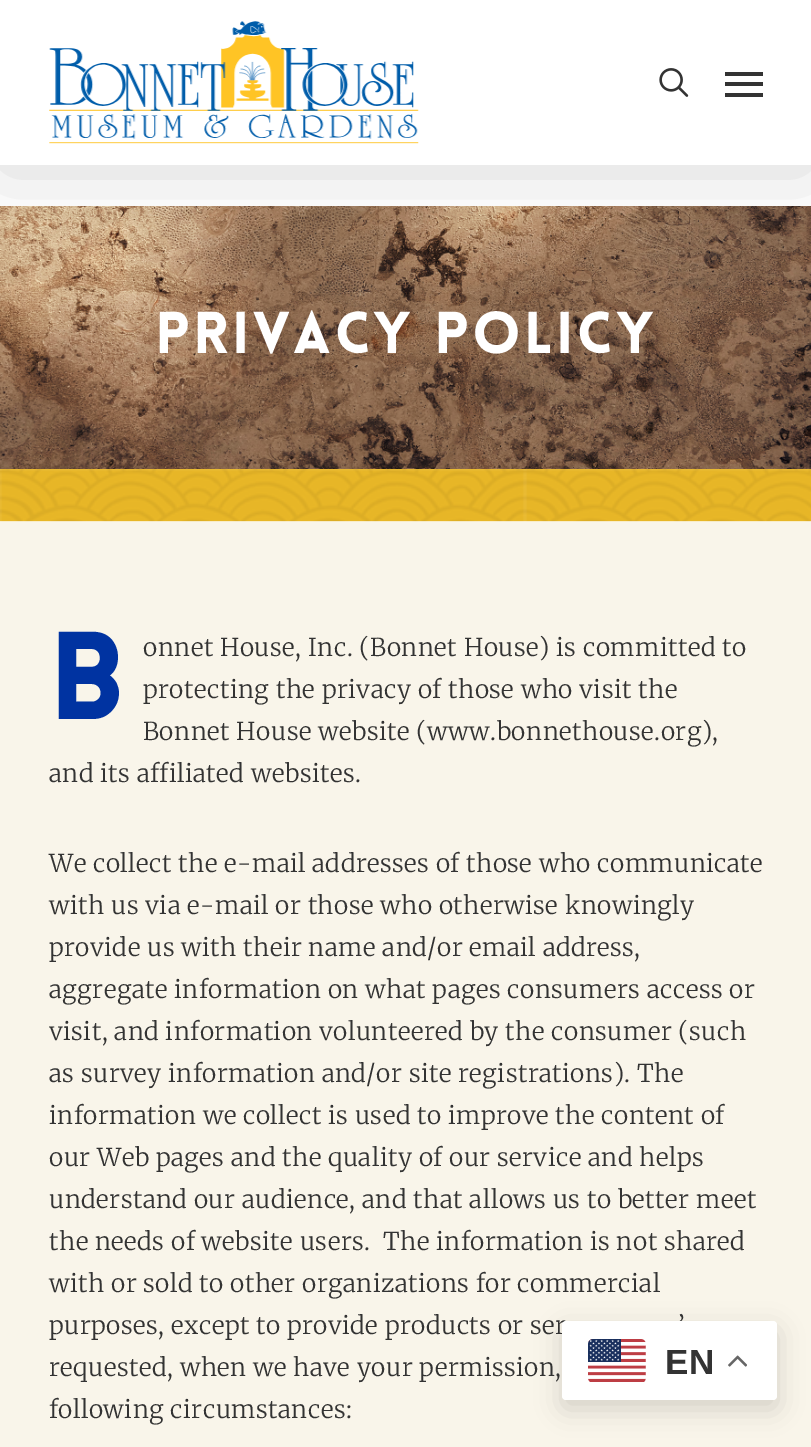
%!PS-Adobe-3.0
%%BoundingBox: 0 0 811 1447
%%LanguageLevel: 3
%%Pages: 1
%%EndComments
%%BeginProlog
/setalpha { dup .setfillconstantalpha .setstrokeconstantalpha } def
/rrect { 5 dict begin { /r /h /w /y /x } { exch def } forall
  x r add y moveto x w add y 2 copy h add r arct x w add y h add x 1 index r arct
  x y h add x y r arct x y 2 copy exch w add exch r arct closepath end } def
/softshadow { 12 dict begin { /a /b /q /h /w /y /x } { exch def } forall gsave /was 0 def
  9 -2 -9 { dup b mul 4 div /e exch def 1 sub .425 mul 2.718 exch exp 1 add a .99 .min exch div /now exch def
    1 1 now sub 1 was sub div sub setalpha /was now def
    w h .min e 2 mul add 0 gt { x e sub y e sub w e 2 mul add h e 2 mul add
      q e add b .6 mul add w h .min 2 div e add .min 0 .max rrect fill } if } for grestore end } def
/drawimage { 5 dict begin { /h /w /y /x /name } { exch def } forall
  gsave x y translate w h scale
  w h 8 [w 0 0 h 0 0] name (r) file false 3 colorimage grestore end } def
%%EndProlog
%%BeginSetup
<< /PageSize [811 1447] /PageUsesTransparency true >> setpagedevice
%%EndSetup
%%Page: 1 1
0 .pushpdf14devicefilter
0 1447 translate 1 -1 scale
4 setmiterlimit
1 setgray
0 0 811 1447 rectfill
(images/3.raw) 0 206 811 263 drawimage
0 setgray
0 5 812 165 0 39.5 0.15 softshadow
1 setgray
0 0 811 165 rectfill
(images/1.raw) 49 21 370 123 drawimage
(images/2.raw) 659 68 30 29 drawimage
0.2 setgray
725 72 38 4 rectfill
725 93 38 4 rectfill
725 82 38 4 rectfill
(images/4.raw) 0 469 811 53 drawimage
0.976 0.961 0.918 setrgbcolor
0 522 811 925 rectfill
0 setgray
562 1330 215 79 4 13 0.15 softshadow
/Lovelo-Black [57.75 0 0 -57.75 0 0] selectfont
1 setgray
155 353 moveto 3.5 0 (PRIVACY POLICY) ashow
/Lovelo-Black [122 0 0 -122 0 0] selectfont
0 0.2 0.631 setrgbcolor
49 719 moveto 0.53 0 (B) ashow
/Merriweather-Light [24.5 0 0 -24.5 0 0] selectfont
0.2 setgray
143 656 moveto 0.53 0 (onnet House, Inc. \(Bonnet House\) is committed to) ashow
143 698 moveto 0.53 0 (protecting the privacy of those who visit the) ashow
143 740 moveto 0.53 0 (Bonnet House website \(www.bonnethouse.org\),) ashow
49 782 moveto 0.53 0 (and its affiliated websites.) ashow
49 872 moveto 0.53 0 (We collect the e-mail addresses of those who communicate) ashow
49 914 moveto 0.53 0 (with us via e-mail or those who otherwise knowingly) ashow
49 956 moveto 0.53 0 (provide us with their name and/or email address,) ashow
49 998 moveto 0.53 0 (aggregate information on what pages consumers access or) ashow
49 1040 moveto 0.53 0 (visit, and information volunteered by the consumer \(such) ashow
49 1082 moveto 0.53 0 (as survey information and/or site registrations\). The) ashow
49 1124 moveto 0.53 0 (information we collect is used to improve the content of) ashow
49 1166 moveto 0.53 0 (our Web pages and the quality of our service and helps) ashow
49 1208 moveto 0.53 0 (understand our audience, and that allows us to better meet) ashow
49 1250 moveto 0.53 0 (the needs of website users.  The information is not shared) ashow
49 1292 moveto 0.53 0 (with or sold to other organizations for commercial) ashow
49 1334 moveto 0.53 0 (purposes, except to provide products or ser) ashow
678 1334 moveto 0.53 0 (’) ashow
49 1376 moveto 0.53 0 (requested, when we have your permission,) ashow
49 1418 moveto 0.53 0 (following circumstances:) ashow
1 setgray
562 1321 215 79 4 rrect fill
(images/5.raw) 588 1339 58 43 drawimage
/LiberationSans-Bold [35 0 0 -35 0 0] selectfont
0.2 setgray
665 1374 moveto 0.53 0 (EN) ashow
(images/6.raw) 728 1355 19 12 drawimage
.poppdf14devicefilter showpage
%%EOF
